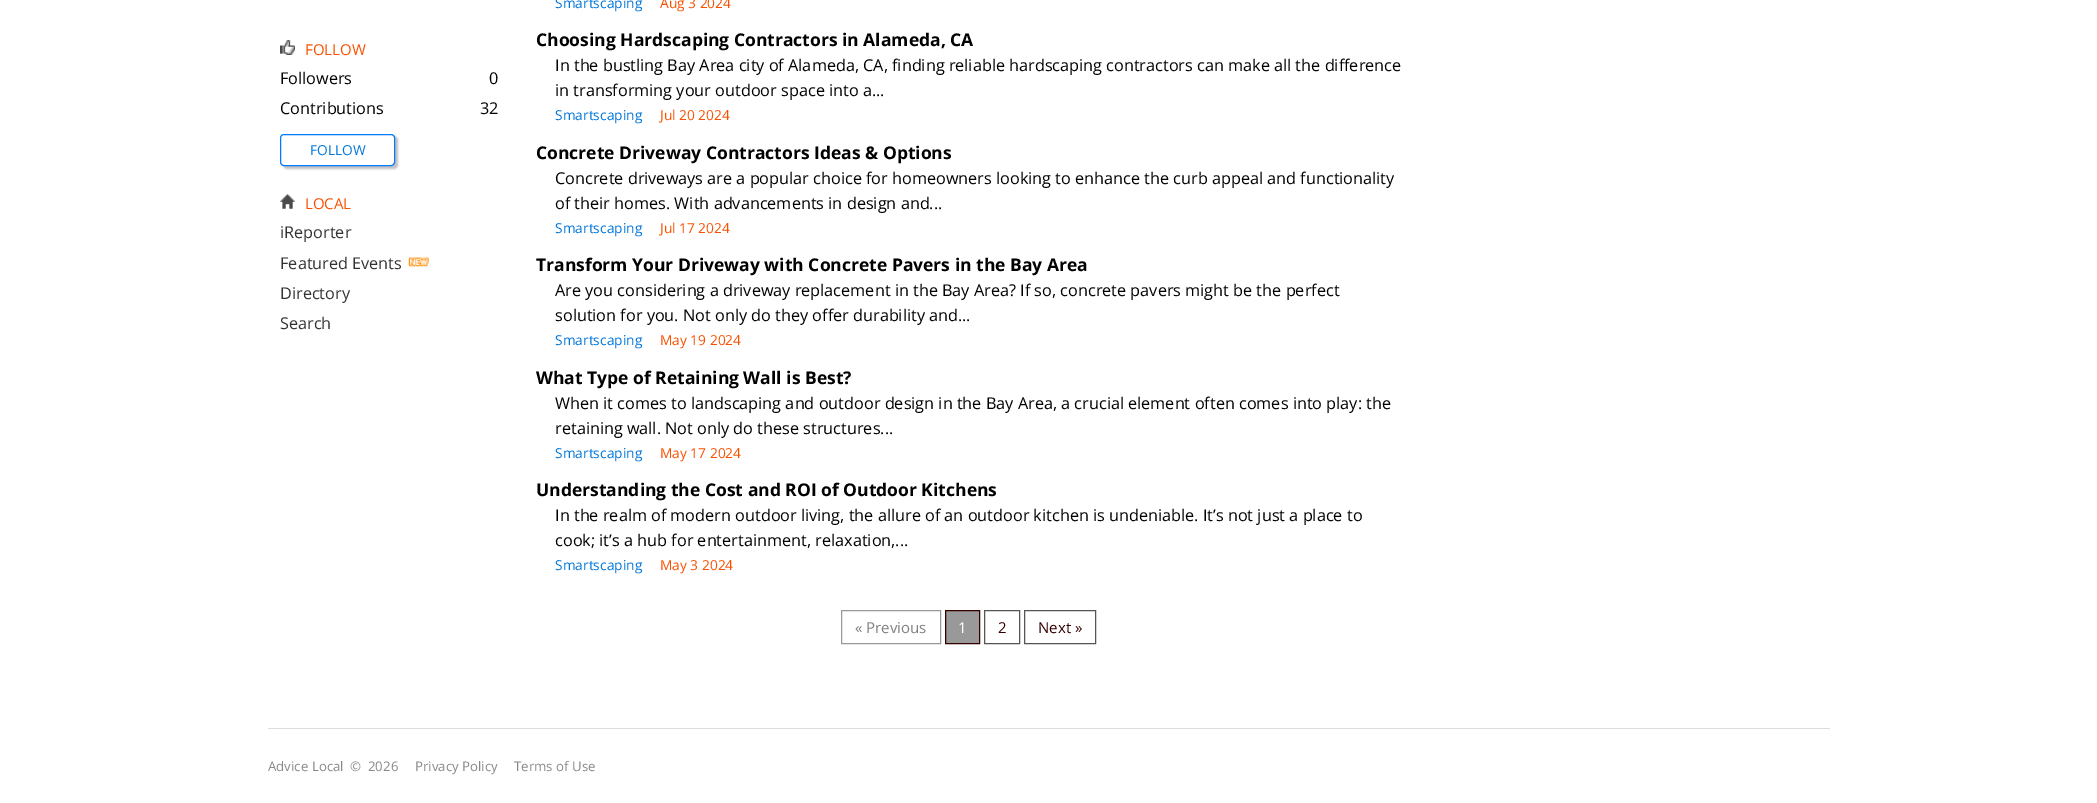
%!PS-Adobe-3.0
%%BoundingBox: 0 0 2097 803
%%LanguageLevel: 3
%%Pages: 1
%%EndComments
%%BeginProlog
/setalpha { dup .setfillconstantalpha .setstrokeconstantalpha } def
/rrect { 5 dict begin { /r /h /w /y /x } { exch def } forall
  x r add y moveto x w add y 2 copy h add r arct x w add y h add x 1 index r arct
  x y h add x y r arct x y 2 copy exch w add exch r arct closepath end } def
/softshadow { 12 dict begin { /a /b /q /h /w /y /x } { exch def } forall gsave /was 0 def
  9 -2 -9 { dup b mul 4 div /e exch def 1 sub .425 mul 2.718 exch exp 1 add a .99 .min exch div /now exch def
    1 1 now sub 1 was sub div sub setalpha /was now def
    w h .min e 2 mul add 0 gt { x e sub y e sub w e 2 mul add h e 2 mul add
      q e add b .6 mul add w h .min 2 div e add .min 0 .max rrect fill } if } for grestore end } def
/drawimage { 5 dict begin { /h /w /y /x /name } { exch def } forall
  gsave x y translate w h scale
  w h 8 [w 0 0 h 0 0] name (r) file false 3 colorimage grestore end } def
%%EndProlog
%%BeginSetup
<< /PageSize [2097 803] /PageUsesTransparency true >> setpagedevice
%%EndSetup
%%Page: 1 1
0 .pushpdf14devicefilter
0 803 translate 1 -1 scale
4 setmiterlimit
1 setgray
0 0 2097 803 rectfill
(images/1.raw) 280 40 15 15 drawimage
0.753 setgray
283 136 115 33 4 1 1 softshadow
1 setgray
280.5 134.5 114 31 3.5 rrect gsave fill grestore
0 0.478 1 setrgbcolor
stroke
(images/2.raw) 280 193 15 16 drawimage
(images/3.raw) 408 257 21 10 drawimage
0.6 setgray
841.5 610.5 99 33 rectstroke
newpath 945.5 610.5 moveto 979.5 610.5 lineto 979.5 643.5 lineto 945.5 643.5 lineto closepath gsave fill grestore
0.2 0 0 setrgbcolor
stroke
0.333 setgray
984.5 610.5 35 33 rectstroke
1024.5 610.5 71 33 rectstroke
0.867 setgray
268 728 1562 1 rectfill
/OpenSans-Regular [15 0 0 -15 0 0] selectfont
0.973 0.314 0 setrgbcolor
305 55 moveto (FOLLOW) show
/OpenSans-Regular [16.25 0 0 -16.25 0 0] selectfont
0 setgray
280 84 moveto (Followers) show
489 84 moveto (0) show
280 114 moveto (Contributions) show
480 114 moveto (32) show
/OpenSans-Regular [13.75 0 0 -13.75 0 0] selectfont
0.004 0.463 0.851 setrgbcolor
310 155 moveto (FOLLOW) show
/OpenSans-Regular [15 0 0 -15 0 0] selectfont
0.973 0.314 0 setrgbcolor
305 209 moveto (LOCAL) show
/OpenSans-Regular [16.25 0 0 -16.25 0 0] selectfont
0.2 setgray
280 238 moveto (iReporter) show
280 269 moveto (Featured Events) show
280 299 moveto (Directory) show
280 329 moveto (Search) show
/OpenSans-Regular [13.75 0 0 -13.75 0 0] selectfont
0.004 0.463 0.851 setrgbcolor
555 8 moveto (Smartscaping) show
0.973 0.314 0 setrgbcolor
660 8 moveto (Aug 3 2024) show
/OpenSans-Bold [17.5 0 0 -17.5 0 0] selectfont
0 setgray
536 46 moveto (Choosing Hardscaping Contractors in Alameda, CA) show
/OpenSans-Regular [16.25 0 0 -16.25 0 0] selectfont
555 71 moveto (In the bustling Bay Area city of Alameda, CA, finding reliable hardscaping contractors can make all the difference) show
555 96 moveto (in transforming your outdoor space into a...) show
/OpenSans-Regular [13.75 0 0 -13.75 0 0] selectfont
0.004 0.463 0.851 setrgbcolor
555 120 moveto (Smartscaping) show
0.973 0.314 0 setrgbcolor
660 120 moveto (Jul 20 2024) show
/OpenSans-Bold [17.5 0 0 -17.5 0 0] selectfont
0 setgray
536 159 moveto (Concrete Driveway Contractors Ideas & Options) show
/OpenSans-Regular [16.25 0 0 -16.25 0 0] selectfont
555 184 moveto (Concrete driveways are a popular choice for homeowners looking to enhance the curb appeal and functionality) show
555 209 moveto (of their homes. With advancements in design and...) show
/OpenSans-Regular [13.75 0 0 -13.75 0 0] selectfont
0.004 0.463 0.851 setrgbcolor
555 233 moveto (Smartscaping) show
0.973 0.314 0 setrgbcolor
660 233 moveto (Jul 17 2024) show
/OpenSans-Bold [17.5 0 0 -17.5 0 0] selectfont
0 setgray
536 271 moveto (Transform Your Driveway with Concrete Pavers in the Bay Area) show
/OpenSans-Regular [16.25 0 0 -16.25 0 0] selectfont
555 296 moveto (Are you considering a driveway replacement in the Bay Area? If so, concrete pavers might be the perfect) show
555 321 moveto (solution for you. Not only do they offer durability and...) show
/OpenSans-Regular [13.75 0 0 -13.75 0 0] selectfont
0.004 0.463 0.851 setrgbcolor
555 345 moveto (Smartscaping) show
0.973 0.314 0 setrgbcolor
660 345 moveto (May 19 2024) show
/OpenSans-Bold [17.5 0 0 -17.5 0 0] selectfont
0 setgray
536 384 moveto (What Type of Retaining Wall is Best?) show
/OpenSans-Regular [16.25 0 0 -16.25 0 0] selectfont
555 409 moveto (When it comes to landscaping and outdoor design in the Bay Area, a crucial element often comes into play: the) show
555 434 moveto (retaining wall. Not only do these structures...) show
/OpenSans-Regular [13.75 0 0 -13.75 0 0] selectfont
0.004 0.463 0.851 setrgbcolor
555 458 moveto (Smartscaping) show
0.973 0.314 0 setrgbcolor
660 458 moveto (May 17 2024) show
/OpenSans-Bold [17.5 0 0 -17.5 0 0] selectfont
0 setgray
536 496 moveto (Understanding the Cost and ROI of Outdoor Kitchens) show
/OpenSans-Regular [16.25 0 0 -16.25 0 0] selectfont
555 521 moveto (In the realm of modern outdoor living, the allure of an outdoor kitchen is undeniable. It’s not just a place to) show
555 546 moveto (cook; it’s a hub for entertainment, relaxation,...) show
/OpenSans-Regular [13.75 0 0 -13.75 0 0] selectfont
0.004 0.463 0.851 setrgbcolor
555 570 moveto (Smartscaping) show
0.973 0.314 0 setrgbcolor
660 570 moveto (May 3 2024) show
/OpenSans-Regular [15 0 0 -15 0 0] selectfont
0.502 setgray
855 633 moveto (« Previous) show
1 setgray
958 633 moveto (1) show
0.2 0 0 setrgbcolor
998 633 moveto (2) show
1038 633 moveto (Next ») show
/OpenSans-Regular [13.25 0 0 -13.25 0 0] selectfont
0.533 setgray
268 771 moveto (Advice Local) show
350 771 moveto (©  2026) show
415 771 moveto (Privacy Policy) show
514 771 moveto (Terms of Use) show
.poppdf14devicefilter showpage
%%EOF
